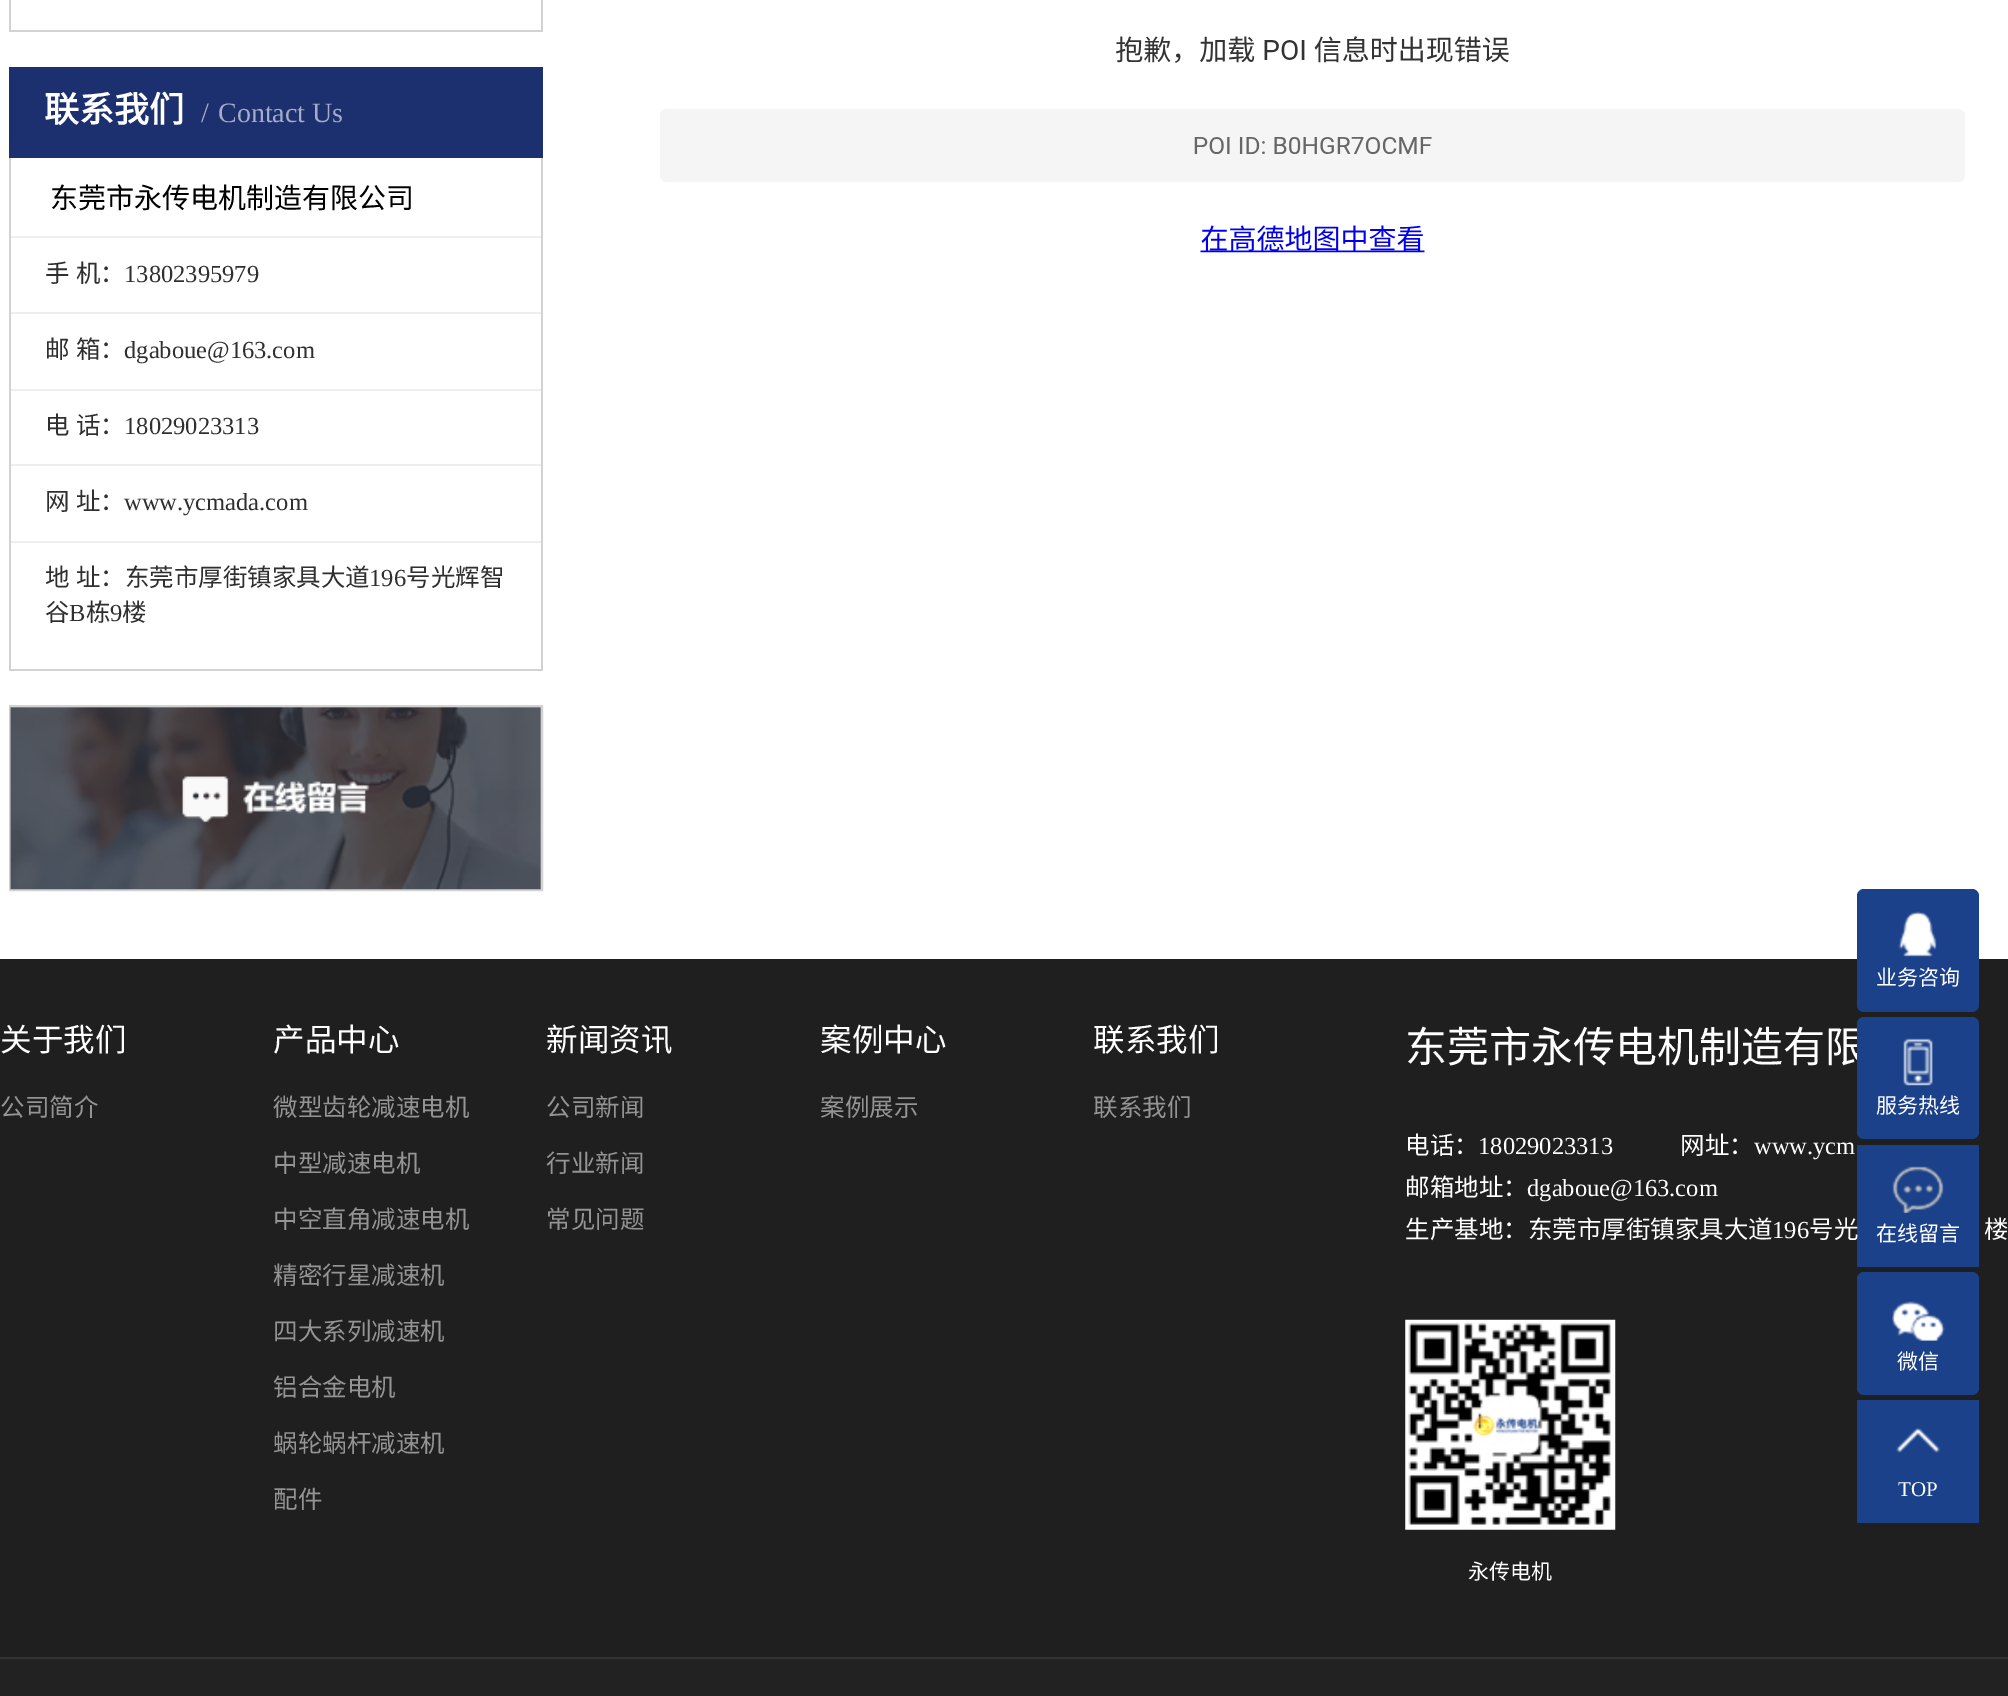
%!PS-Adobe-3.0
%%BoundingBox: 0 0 2008 1696
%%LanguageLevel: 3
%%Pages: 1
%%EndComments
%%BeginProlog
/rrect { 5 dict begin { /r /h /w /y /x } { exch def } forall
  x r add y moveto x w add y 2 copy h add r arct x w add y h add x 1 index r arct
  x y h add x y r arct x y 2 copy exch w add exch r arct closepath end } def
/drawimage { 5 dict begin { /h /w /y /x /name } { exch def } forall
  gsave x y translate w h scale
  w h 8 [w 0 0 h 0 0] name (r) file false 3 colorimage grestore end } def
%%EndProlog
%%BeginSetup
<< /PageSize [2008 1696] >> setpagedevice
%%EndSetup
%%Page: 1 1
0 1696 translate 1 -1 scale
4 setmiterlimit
1 setgray
0 0 2008 1696 rectfill
0.824 setgray
541 0 2 32 rectfill
9 30 534 2 rectfill
9 0 2 32 rectfill
0.11 0.188 0.439 setrgbcolor
9 67 534 91 rectfill
0.824 setgray
541 158 2 512 rectfill
9 669 534 2 rectfill
9 158 2 512 rectfill
0.933 setgray
11 236 530 2 rectfill
11 312 530 2 rectfill
11 389 530 2 rectfill
11 464 530 2 rectfill
11 541 530 2 rectfill
0.824 setgray
2 setlinewidth
10 706 532 184 rectstroke
(images/1.raw) 10 707 531 183 drawimage
(images/2.raw) 660 36 1305 217 drawimage
0.122 setgray
0 959 2008 698 rectfill
0.106 0.255 0.541 setrgbcolor
1857 889 122 123 7 rrect fill
(images/3.raw) 1898 911 39 46 drawimage
1857 1145 122 122 rectfill
(images/5.raw) 1892 1166 52 47 drawimage
1857 1272 122 123 7 rrect fill
(images/6.raw) 1892 1301 53 40 drawimage
1857 1400 122 123 rectfill
(images/7.raw) 1896 1428 44 25 drawimage
(images/8.raw) 1405 1319 211 211 drawimage
0.133 setgray
0 1659 2008 37 rectfill
0.2 setgray
0 1657 2008 2 rectfill
/NotoSansCJKSC-Bold [35 0 0 -35 0 0] selectfont
1 setgray
44 122 moveto (联系我们) show
/LiberationSerif-Regular [28 0 0 -28 0 0] selectfont
0.643 0.675 0.776 setrgbcolor
201 122 moveto (/) show
218 122 moveto (Contact Us) show
/NotoSansCJKSC-Regular [28 0 0 -28 0 0] selectfont
0 setgray
50 208 moveto (东莞市永传电机制造有限公司) show
/NotoSansCJKSC-Regular [24.5 0 0 -24.5 0 0] selectfont
0.184 setgray
45 282 moveto 1 0 32 (手 机：) widthshow
/LiberationSerif-Regular [24.5 0 0 -24.5 0 0] selectfont
124 282 moveto (13802395979) show
/NotoSansCJKSC-Regular [24.5 0 0 -24.5 0 0] selectfont
45 358 moveto 1 0 32 (邮 箱：) widthshow
/LiberationSerif-Regular [24.5 0 0 -24.5 0 0] selectfont
124 358 moveto (dgaboue@163.com) show
/NotoSansCJKSC-Regular [24.5 0 0 -24.5 0 0] selectfont
45 434 moveto 1 0 32 (电 话：) widthshow
/LiberationSerif-Regular [24.5 0 0 -24.5 0 0] selectfont
124 434 moveto (18029023313) show
/NotoSansCJKSC-Regular [24.5 0 0 -24.5 0 0] selectfont
45 510 moveto 1 0 32 (网 址：) widthshow
/LiberationSerif-Regular [24.5 0 0 -24.5 0 0] selectfont
124 510 moveto (www.ycmada.com) show
/NotoSansCJKSC-Regular [24.5 0 0 -24.5 0 0] selectfont
45 586 moveto 1 0 32 (地 址：东莞市厚街镇家具大道) widthshow
/LiberationSerif-Regular [24.5 0 0 -24.5 0 0] selectfont
369 586 moveto (196) show
/NotoSansCJKSC-Regular [24.5 0 0 -24.5 0 0] selectfont
406 586 moveto (号光辉智) show
45 621 moveto (谷) show
/LiberationSerif-Regular [24.5 0 0 -24.5 0 0] selectfont
69 621 moveto (B) show
/NotoSansCJKSC-Regular [24.5 0 0 -24.5 0 0] selectfont
86 621 moveto (栋) show
/LiberationSerif-Regular [24.5 0 0 -24.5 0 0] selectfont
110 621 moveto (9) show
/NotoSansCJKSC-Regular [24.5 0 0 -24.5 0 0] selectfont
122 621 moveto (楼) show
/NotoSansCJKSC-Regular [21 0 0 -21 0 0] selectfont
1 setgray
1876 985 moveto (业务咨询) show
1876 1241 moveto (在线留言) show
1897 1369 moveto (微信) show
/LiberationSerif-Regular [21 0 0 -21 0 0] selectfont
1898 1496 moveto (TOP) show
/NotoSansCJKSC-Regular [31.5 0 0 -31.5 0 0] selectfont
0 1051 moveto (关于我们) show
/NotoSansCJKSC-Regular [24.5 0 0 -24.5 0 0] selectfont
0.58 setgray
0 1116 moveto (公司简介) show
/NotoSansCJKSC-Regular [31.5 0 0 -31.5 0 0] selectfont
1 setgray
273 1051 moveto (产品中心) show
/NotoSansCJKSC-Regular [24.5 0 0 -24.5 0 0] selectfont
0.58 setgray
273 1116 moveto (微型齿轮减速电机) show
273 1172 moveto (中型减速电机) show
273 1228 moveto (中空直角减速电机) show
273 1284 moveto (精密行星减速机) show
273 1340 moveto (四大系列减速机) show
273 1396 moveto (铝合金电机) show
273 1452 moveto (蜗轮蜗杆减速机) show
273 1508 moveto (配件) show
/NotoSansCJKSC-Regular [31.5 0 0 -31.5 0 0] selectfont
1 setgray
546 1051 moveto (新闻资讯) show
/NotoSansCJKSC-Regular [24.5 0 0 -24.5 0 0] selectfont
0.58 setgray
546 1116 moveto (公司新闻) show
546 1172 moveto (行业新闻) show
546 1228 moveto (常见问题) show
/NotoSansCJKSC-Regular [31.5 0 0 -31.5 0 0] selectfont
1 setgray
820 1051 moveto (案例中心) show
/NotoSansCJKSC-Regular [24.5 0 0 -24.5 0 0] selectfont
0.58 setgray
820 1116 moveto (案例展示) show
/NotoSansCJKSC-Regular [31.5 0 0 -31.5 0 0] selectfont
1 setgray
1093 1051 moveto (联系我们) show
/NotoSansCJKSC-Regular [24.5 0 0 -24.5 0 0] selectfont
0.58 setgray
1093 1116 moveto (联系我们) show
/NotoSansCJKSC-Regular [42 0 0 -42 0 0] selectfont
1 setgray
1405 1062 moveto (东莞市永传电机制造有限) show
0.106 0.255 0.541 setrgbcolor
1857 1017 122 122 7 rrect fill
(images/4.raw) 1903 1038 30 48 drawimage
/NotoSansCJKSC-Regular [21 0 0 -21 0 0] selectfont
1 setgray
1876 1113 moveto (服务热线) show
/NotoSansCJKSC-Regular [24.5 0 0 -24.5 0 0] selectfont
1405 1154 moveto (电话：) show
/LiberationSerif-Regular [24.5 0 0 -24.5 0 0] selectfont
1478 1154 moveto (18029023313) show
/NotoSansCJKSC-Regular [24.5 0 0 -24.5 0 0] selectfont
1680 1154 moveto (网址：) show
/LiberationSerif-Regular [24.5 0 0 -24.5 0 0] selectfont
1754 1154 moveto (www.ycm) show
/NotoSansCJKSC-Regular [24.5 0 0 -24.5 0 0] selectfont
1405 1196 moveto (邮箱地址：) show
/LiberationSerif-Regular [24.5 0 0 -24.5 0 0] selectfont
1527 1196 moveto (dgaboue@163.com) show
/NotoSansCJKSC-Regular [24.5 0 0 -24.5 0 0] selectfont
1405 1238 moveto (生产基地：东莞市厚街镇家具大道) show
/LiberationSerif-Regular [24.5 0 0 -24.5 0 0] selectfont
1772 1238 moveto (196) show
/NotoSansCJKSC-Regular [24.5 0 0 -24.5 0 0] selectfont
1809 1238 moveto (号光) show
1984 1238 moveto (楼) show
/NotoSansCJKSC-Regular [21 0 0 -21 0 0] selectfont
1468 1579 moveto (永传电机) show
showpage
%%EOF
